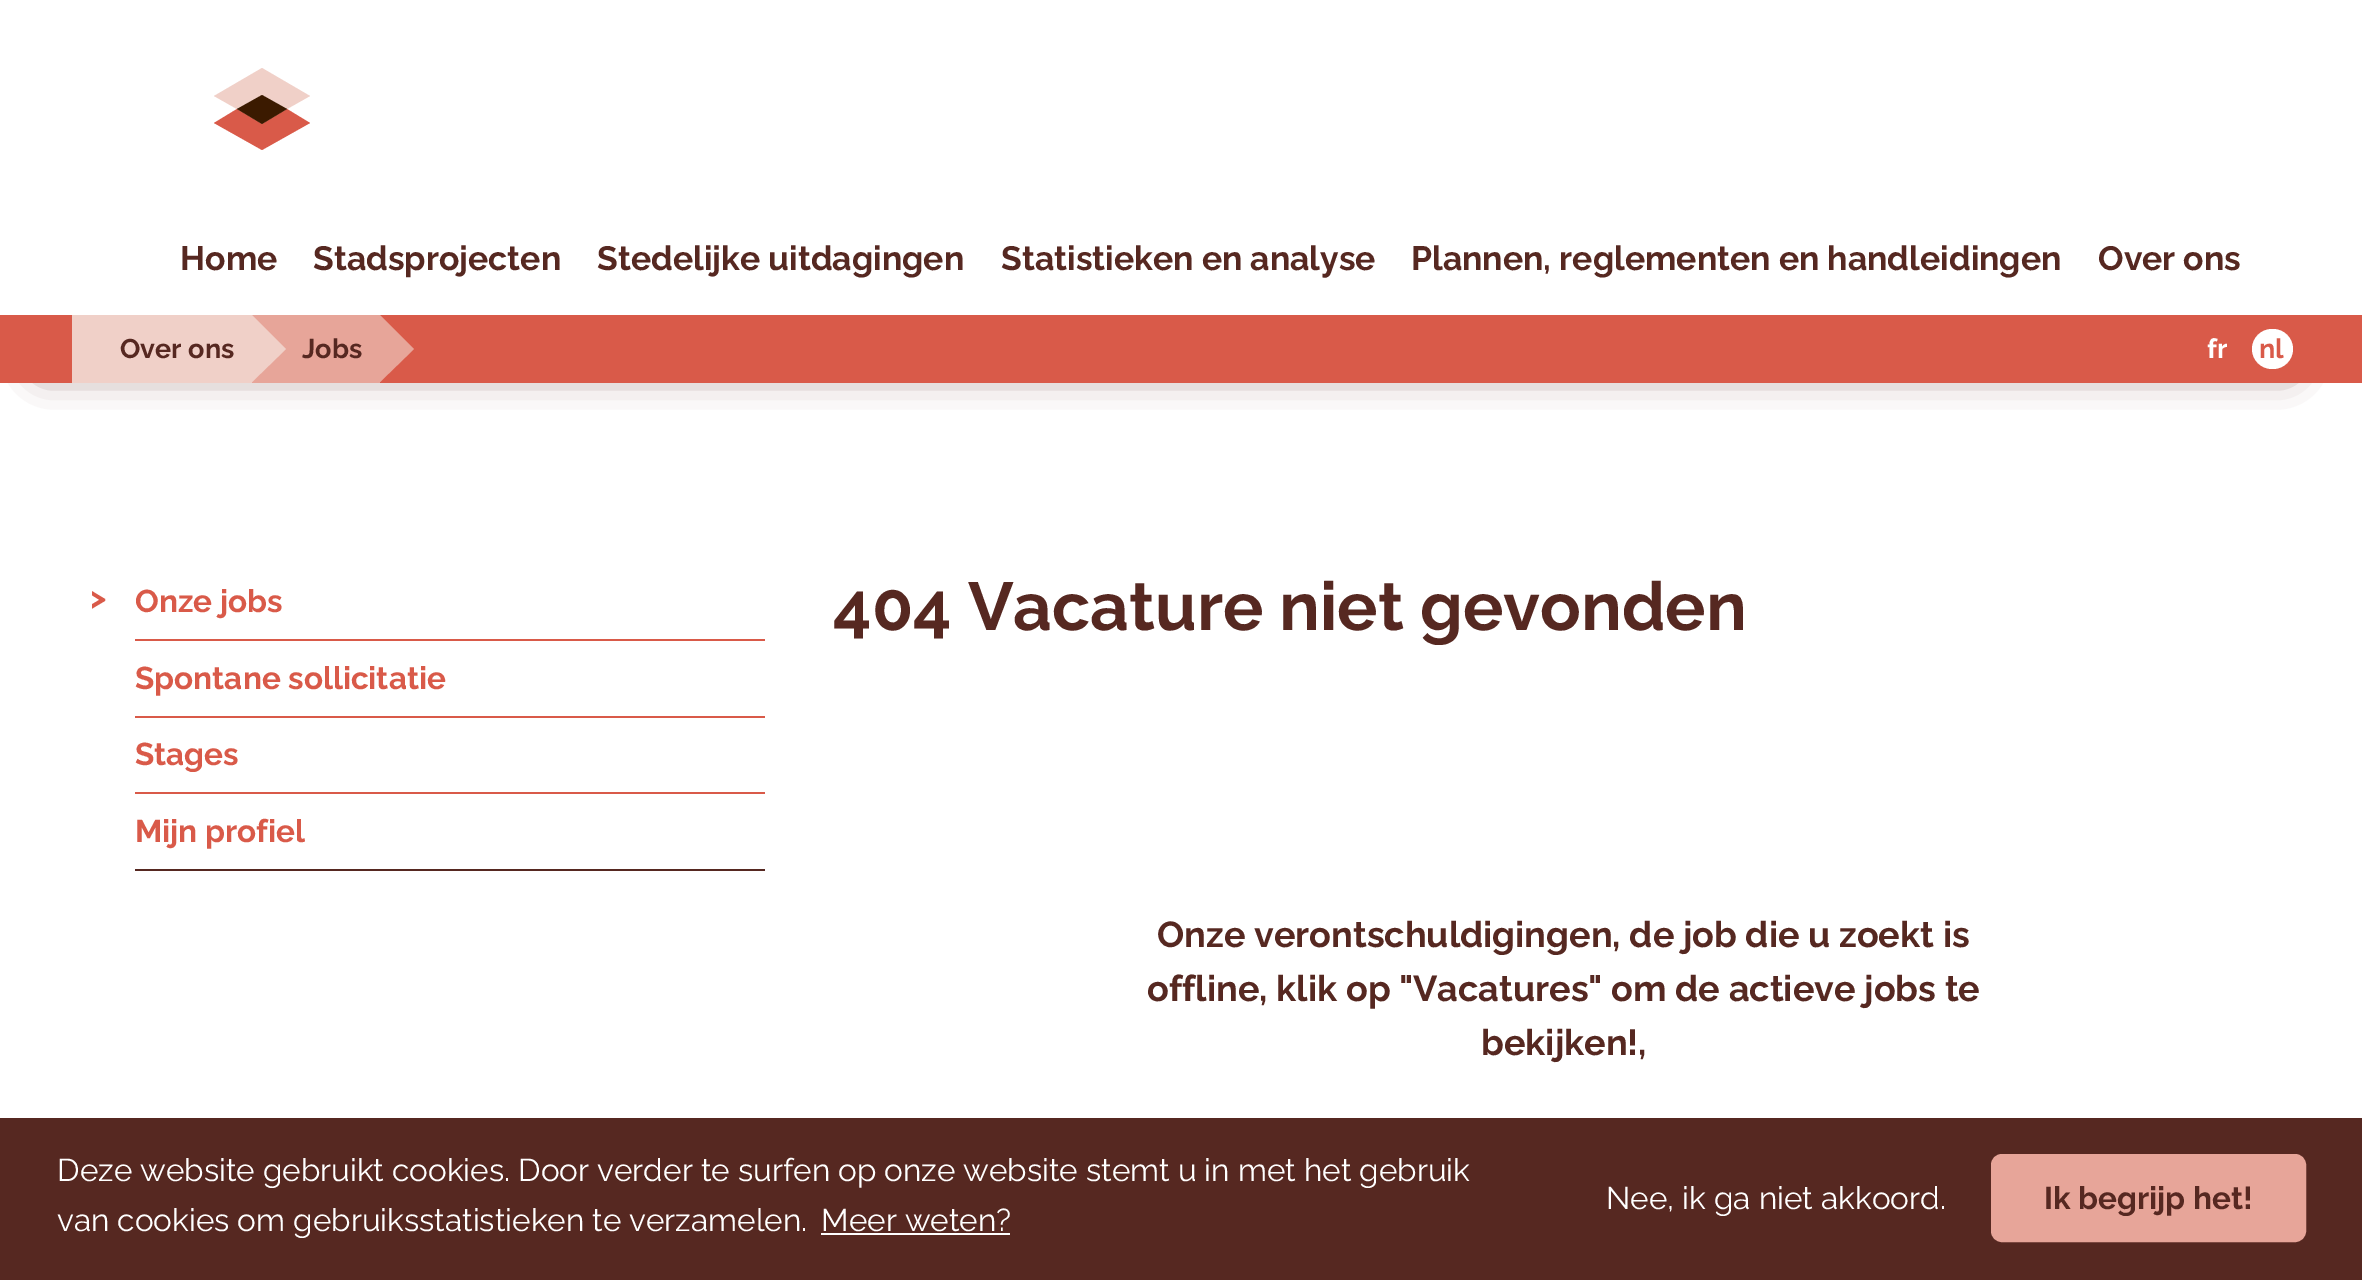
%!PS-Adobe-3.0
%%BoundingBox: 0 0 2362 1280
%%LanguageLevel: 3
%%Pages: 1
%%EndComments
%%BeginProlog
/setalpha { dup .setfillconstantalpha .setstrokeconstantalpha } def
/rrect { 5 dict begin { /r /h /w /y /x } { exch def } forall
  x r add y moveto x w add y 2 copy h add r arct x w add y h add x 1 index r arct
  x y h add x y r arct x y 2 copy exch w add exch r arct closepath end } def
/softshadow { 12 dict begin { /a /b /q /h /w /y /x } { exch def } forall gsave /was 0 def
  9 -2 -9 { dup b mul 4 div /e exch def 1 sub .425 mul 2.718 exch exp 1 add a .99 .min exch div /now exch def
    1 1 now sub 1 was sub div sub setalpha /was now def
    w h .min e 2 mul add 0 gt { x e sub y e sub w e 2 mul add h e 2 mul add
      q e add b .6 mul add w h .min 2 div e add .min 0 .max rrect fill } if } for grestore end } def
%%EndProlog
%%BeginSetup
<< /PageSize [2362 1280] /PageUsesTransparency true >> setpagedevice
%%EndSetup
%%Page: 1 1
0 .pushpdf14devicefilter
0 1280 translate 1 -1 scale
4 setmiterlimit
1 setgray
0 0 2362 1280 rectfill
0.337 0.157 0.129 setrgbcolor
43 101 2245 266 0 19 1 softshadow
1 setgray
0 58 2331 257 rectfill
0.941 0.816 0.784 setrgbcolor
newpath 262 95 moveto 287 109 lineto 310 96 lineto 262 68 lineto 214 96 lineto 237 109 lineto closepath fill
0.851 0.353 0.286 setrgbcolor
newpath 237 109 moveto 214 123 lineto 262 150 lineto 310 123 lineto 287 109 lineto 262 124 lineto closepath fill
0.231 0.102 0 setrgbcolor
newpath 237 109 moveto 262 124 lineto 287 109 lineto 262 95 lineto closepath fill
0.851 0.353 0.286 setrgbcolor
0 315 2362 68 rectfill
0.941 0.816 0.784 setrgbcolor
72 315 180 68 rectfill
0.906 0.647 0.6 setrgbcolor
252 315 128 68 rectfill
0.941 0.816 0.784 setrgbcolor
newpath 252 382 moveto 252 315 lineto 286 349 lineto closepath fill
0.906 0.647 0.6 setrgbcolor
newpath 380 382 moveto 380 315 lineto 414 349 lineto closepath fill
1 setgray
2252 329 41 40 20 rrect fill
0.851 0.353 0.286 setrgbcolor
135 639 630 2 rectfill
135 716 630 2 rectfill
135 792 630 2 rectfill
0.337 0.157 0.129 setrgbcolor
135 869 630 2 rectfill
0 1118 2362 162 rectfill
1 setgray
821 1233 189 2 rectfill
0.906 0.647 0.6 setrgbcolor
1993.5 1156.5 310 83 8.5 rrect gsave fill grestore
5 setlinewidth
stroke
/Raleway-Bold [33.75 0 0 -33.75 0 0] selectfont
0.337 0.157 0.129 setrgbcolor
180 270 moveto (Home) show
313 270 moveto (Stadsprojecten) show
597 270 moveto (Stedelijke uitdagingen) show
1001 270 moveto (Statistieken en analyse) show
1411 270 moveto (Plannen, reglementen en handleidingen) show
2098 270 moveto (Over ons) show
/Raleway-Bold [27 0 0 -27 0 0] selectfont
120 358 moveto (Over ons) show
302 358 moveto (Jobs) show
1 setgray
2207 358 moveto (fr) show
0.851 0.353 0.286 setrgbcolor
2259 358 moveto (nl) show
/Raleway-Bold [31.5 0 0 -31.5 0 0] selectfont
90 608 moveto (>) show
135 612 moveto (Onze jobs) show
135 689 moveto (Spontane sollicitatie) show
135 765 moveto (Stages) show
135 842 moveto (Mijn profiel) show
/Raleway-Bold [67.5 0 0 -67.5 0 0] selectfont
0.337 0.157 0.129 setrgbcolor
833 630 moveto (404 Vacature niet gevonden) show
/Raleway-Bold [36 0 0 -36 0 0] selectfont
1157 947 moveto (Onze verontschuldigingen, de job die u zoekt is) show
1147 1001 moveto (offline, klik op "Vacatures" om de actieve jobs te) show
1481 1055 moveto (bekijken!,) show
/Raleway-Regular [31.5 0 0 -31.5 0 0] selectfont
1 setgray
57 1181 moveto (Deze website gebruikt cookies. Door verder te surfen op onze website stemt u in met het gebruik) show
57 1231 moveto (van cookies om gebruiksstatistieken te verzamelen.) show
821 1231 moveto (Meer weten?) show
1606 1209 moveto (Nee, ik ga niet akkoord.) show
/Raleway-Bold [31.5 0 0 -31.5 0 0] selectfont
0.337 0.157 0.129 setrgbcolor
2044 1209 moveto (Ik begrijp het!) show
.poppdf14devicefilter showpage
%%EOF
